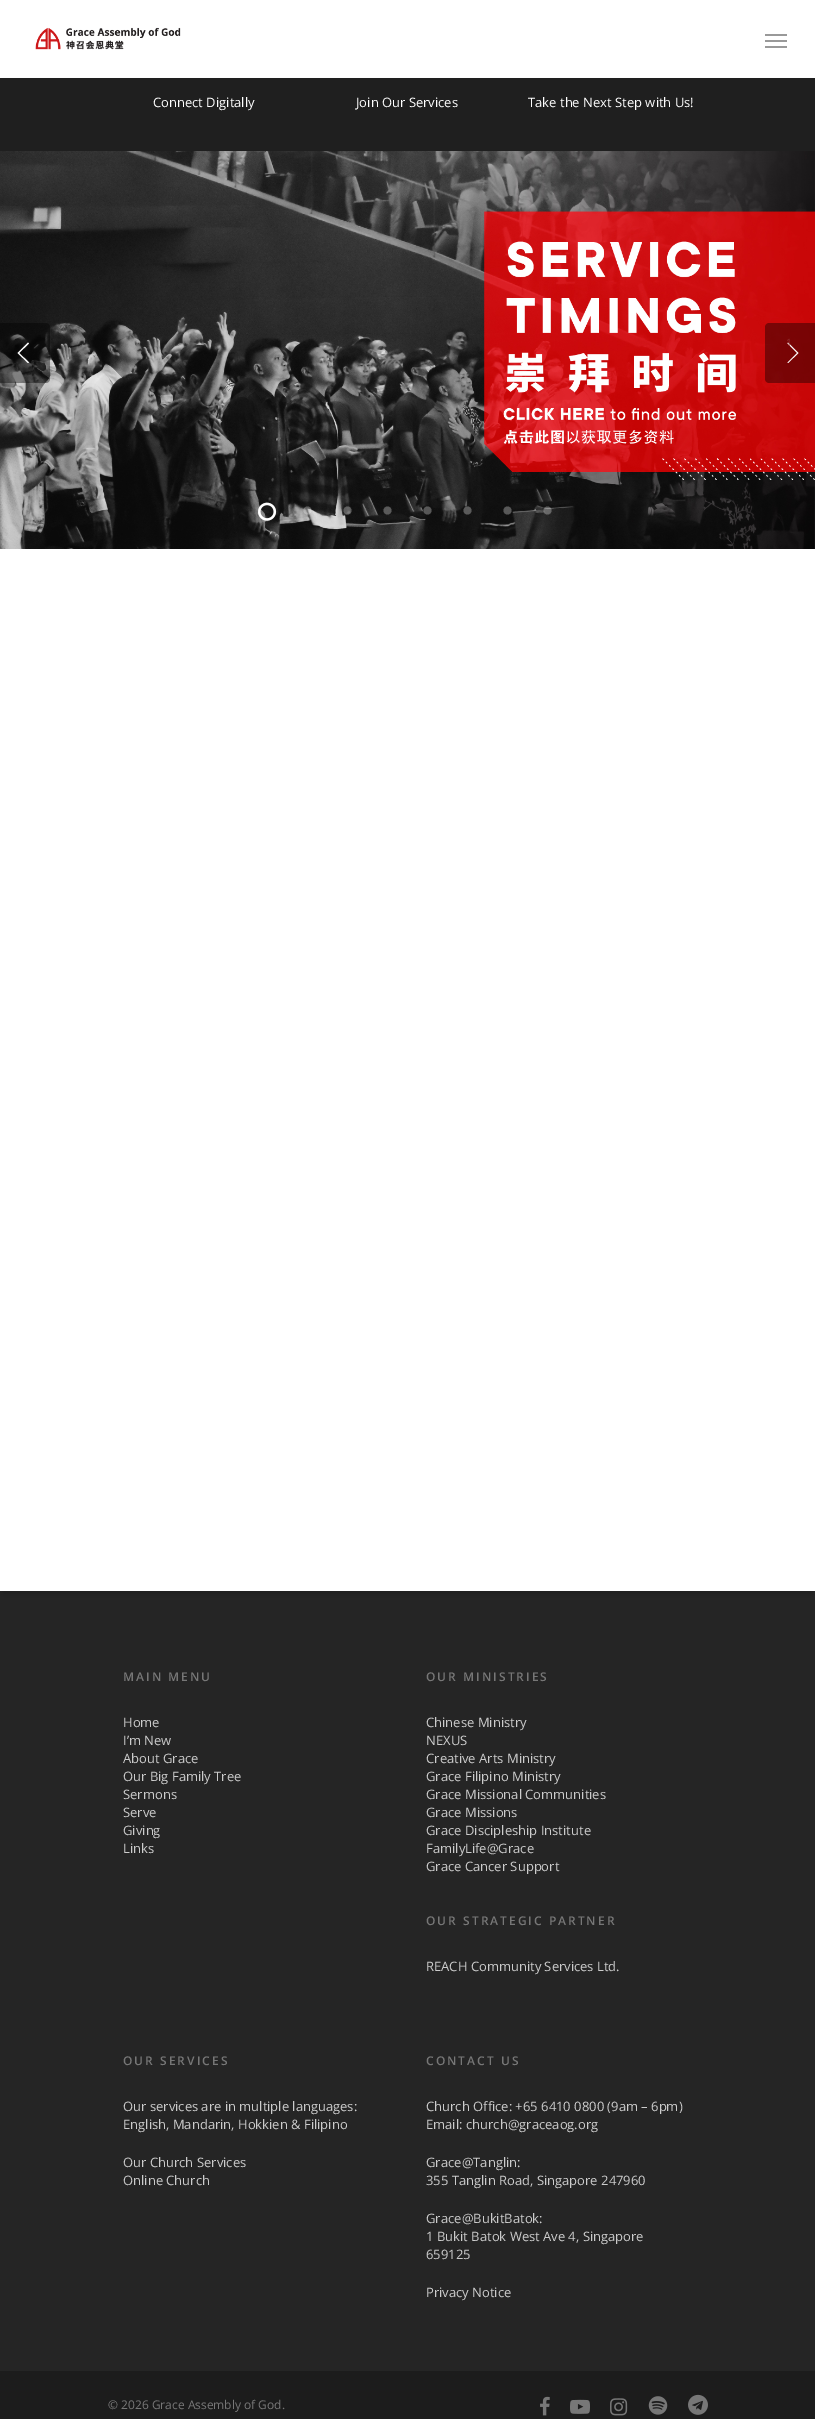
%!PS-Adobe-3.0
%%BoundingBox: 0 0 815 2419
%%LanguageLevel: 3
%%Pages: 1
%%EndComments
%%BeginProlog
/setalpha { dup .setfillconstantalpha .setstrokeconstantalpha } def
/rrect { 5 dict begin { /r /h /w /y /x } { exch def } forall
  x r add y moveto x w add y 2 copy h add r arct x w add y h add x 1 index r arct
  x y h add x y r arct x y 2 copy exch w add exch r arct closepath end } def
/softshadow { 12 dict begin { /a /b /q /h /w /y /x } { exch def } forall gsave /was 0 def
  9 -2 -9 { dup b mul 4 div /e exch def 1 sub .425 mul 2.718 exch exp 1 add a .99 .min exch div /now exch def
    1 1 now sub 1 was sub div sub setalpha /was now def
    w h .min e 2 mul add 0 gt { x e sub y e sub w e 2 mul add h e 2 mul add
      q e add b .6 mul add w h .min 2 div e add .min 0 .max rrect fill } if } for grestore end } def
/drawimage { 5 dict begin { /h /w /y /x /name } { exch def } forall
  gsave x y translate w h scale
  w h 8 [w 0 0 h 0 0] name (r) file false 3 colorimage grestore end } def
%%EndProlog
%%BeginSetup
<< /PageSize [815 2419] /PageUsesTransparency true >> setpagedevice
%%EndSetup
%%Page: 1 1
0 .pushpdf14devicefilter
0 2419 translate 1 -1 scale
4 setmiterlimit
1 setgray
0 0 815 2419 rectfill
(images/1.raw) 35 27 146 23 drawimage
0.6 setgray
765 34 22 2 rectfill
765 46 22 2 rectfill
765 40 22 2 rectfill
0.145 setgray
0 1591 815 780 rectfill
0 setgray
3 86 809 1507 0 4 0.2 softshadow
1 setgray
0 549 815 1042 rectfill
0.122 setgray
0 78 815 73 rectfill
(images/2.raw) 0 151 815 398 drawimage
0.4 setalpha
0 setgray
newpath 0 323 moveto 46 323 lineto 48 323 50 325 50 327 curveto 50 379 lineto 50 381 48 383 46 383 curveto 0 383 lineto closepath fill
1 setalpha
1 setgray
newpath 29 362.5 moveto 28 363 lineto 17.5 353 lineto 28 342.5 lineto 29 343.5 lineto 19 353 lineto closepath fill
0.4 setalpha
0 setgray
newpath 769 323 moveto 815 323 lineto 815 383 lineto 769 383 lineto 767 383 765 381 765 379 curveto 765 327 lineto 765 325 767 323 769 323 curveto closepath fill
1 setalpha
1 setgray
newpath 787.5 343.5 moveto 788 342.5 lineto 798.5 353 lineto 788 363 lineto 787.5 362.5 lineto 797 353 lineto closepath fill
(images/3.raw) 258 502 19 19 drawimage
0.3 setalpha
newpath 307.5 510.5 4 0 360 arc closepath fill
newpath 347.5 510.5 4 0 360 arc closepath fill
newpath 387.5 510.5 4 0 360 arc closepath fill
newpath 427.5 510.5 4 0 360 arc closepath fill
newpath 467.5 510.5 4 0 360 arc closepath fill
newpath 507.5 510.5 4 0 360 arc closepath fill
newpath 547.5 510.5 4 0 360 arc closepath fill
1 setalpha
0.11 setgray
0 2371 815 48 rectfill
(images/4.raw) 540 2396 10 20 drawimage
(images/5.raw) 570 2399 20 15 drawimage
(images/6.raw) 610 2398 18 18 drawimage
(images/7.raw) 648 2396 20 19 drawimage
(images/8.raw) 688 2394 20 21 drawimage
/OpenSans-Regular [13 0 0 -13 0 0] selectfont
1 setgray
153 107 moveto (Connect Digitally) show
356 107 moveto (Join Our Services) show
528 107 moveto (Take the Next Step with Us!) show
/OpenSans-Regular [10 0 0 -10 0 0] selectfont
0.561 0.176 0.18 setrgbcolor
786 346 moveto (1) show
/OpenSans-SemiBold [12 0 0 -12 0 0] selectfont
0.467 setgray
123 1681 moveto 2 0 (MAIN MENU) ashow
/OpenSans-Regular [13 0 0 -13 0 0] selectfont
0.8 setgray
123 1727 moveto (Home) show
123 1745 moveto (I’m New) show
123 1763 moveto (About Grace) show
123 1781 moveto (Our Big Family Tree) show
123 1799 moveto (Sermons) show
123 1817 moveto (Serve) show
123 1835 moveto (Giving) show
123 1853 moveto (Links) show
/OpenSans-SemiBold [12 0 0 -12 0 0] selectfont
0.467 setgray
426 1681 moveto 2 0 (OUR MINISTRIES) ashow
/OpenSans-Regular [13 0 0 -13 0 0] selectfont
0.8 setgray
426 1727 moveto (Chinese Ministry) show
426 1745 moveto (NEXUS) show
426 1763 moveto (Creative Arts Ministry) show
426 1781 moveto (Grace Filipino Ministry) show
426 1799 moveto (Grace Missional Communities) show
426 1817 moveto (Grace Missions) show
426 1835 moveto (Grace Discipleship Institute) show
426 1853 moveto (FamilyLife@Grace) show
426 1871 moveto (Grace Cancer Support) show
/OpenSans-SemiBold [12 0 0 -12 0 0] selectfont
0.467 setgray
426 1925 moveto 2 0 (OUR STRATEGIC PARTNER) ashow
/OpenSans-Regular [13 0 0 -13 0 0] selectfont
0.8 setgray
426 1971 moveto (REACH Community Services Ltd.) show
/OpenSans-SemiBold [12 0 0 -12 0 0] selectfont
0.467 setgray
123 2065 moveto 2 0 (OUR SERVICES) ashow
/OpenSans-Regular [13 0 0 -13 0 0] selectfont
0.8 setgray
123 2111 moveto (Our services are in multiple languages:) show
123 2129 moveto (English, Mandarin, Hokkien & Filipino) show
123 2167 moveto (Our Church Services) show
123 2185 moveto (Online Church) show
/OpenSans-SemiBold [12 0 0 -12 0 0] selectfont
0.467 setgray
426 2065 moveto 2 0 (CONTACT US) ashow
/OpenSans-Regular [13 0 0 -13 0 0] selectfont
0.8 setgray
426 2111 moveto (Church Office: +65 6410 0800 \(9am – 6pm\)) show
426 2129 moveto (Email: church@graceaog.org) show
426 2167 moveto (Grace@Tanglin:) show
426 2185 moveto (355 Tanglin Road, Singapore 247960) show
426 2223 moveto (Grace@BukitBatok:) show
426 2241 moveto (1 Bukit Batok West Ave 4, Singapore) show
426 2259 moveto (659125) show
426 2297 moveto (Privacy Notice) show
/OpenSans-Regular [12 0 0 -12 0 0] selectfont
0.467 setgray
108 2409 moveto (© 2026 Grace Assembly of God.) show
.poppdf14devicefilter showpage
%%EOF
